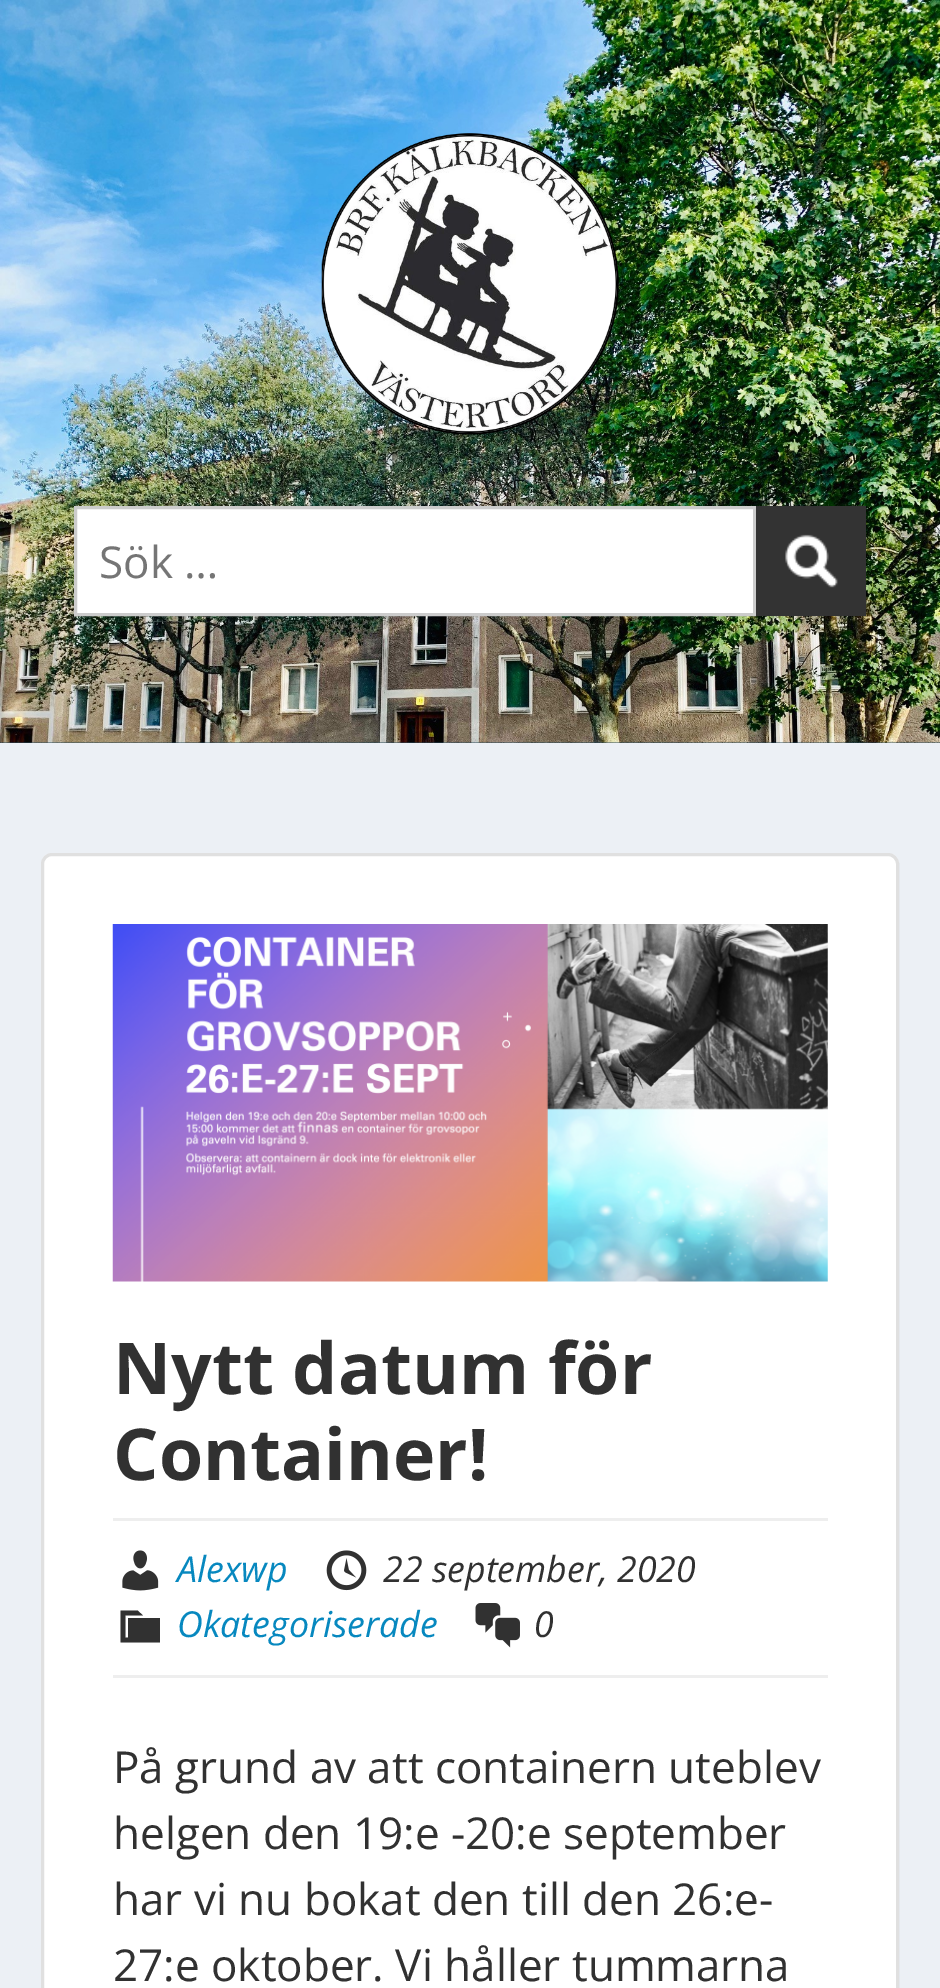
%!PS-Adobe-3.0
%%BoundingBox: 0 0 940 1988
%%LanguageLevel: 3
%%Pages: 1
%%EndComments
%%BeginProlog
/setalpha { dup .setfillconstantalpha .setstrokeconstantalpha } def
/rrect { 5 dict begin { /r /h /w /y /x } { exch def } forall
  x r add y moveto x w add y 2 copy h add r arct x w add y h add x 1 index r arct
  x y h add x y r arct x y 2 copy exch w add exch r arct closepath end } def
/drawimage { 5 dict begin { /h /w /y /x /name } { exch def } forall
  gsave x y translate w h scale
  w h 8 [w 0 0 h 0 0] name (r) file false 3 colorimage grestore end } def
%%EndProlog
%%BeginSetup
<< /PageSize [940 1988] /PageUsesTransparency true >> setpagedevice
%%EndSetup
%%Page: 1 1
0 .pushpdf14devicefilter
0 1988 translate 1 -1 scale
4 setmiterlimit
0.925 0.941 0.961 setrgbcolor
0 0 940 1988 rectfill
0.173 0.29 0.345 setrgbcolor
0 742 940 1 rectfill
(images/1.raw) 0 0 940 743 drawimage
(images/2.raw) 321 133 298 302 drawimage
1 setgray
newpath 75.5 507.5 moveto 754.5 507.5 lineto 754.5 614.5 lineto 75.5 614.5 lineto closepath gsave fill grestore
0.8 setgray
3 setlinewidth
stroke
0.2 setgray
756 506 110 110 rectfill
(images/3.raw) 785 534 53 54 drawimage
1 setgray
41 853 858 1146 11 rrect fill
0.12 setalpha
0 setgray
42.5 854.5 855 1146 9.5 rrect stroke
1 setalpha
(images/4.raw) 112 924 716 358 drawimage
0.933 setgray
113 1518 715 3 rectfill
113 1675 715 3 rectfill
(images/5.raw) 122 1550 37 41 drawimage
(images/6.raw) 326 1550 41 41 drawimage
0.192 setgray
newpath 128 1618 moveto 160 1618 lineto 160 1642.5 lineto 120.5 1642.5 lineto 120.5 1610.5 lineto 137.5 1610.5 lineto 143 1615.5 lineto 125.5 1615.5 lineto 125.5 1637.5 lineto 128 1637.5 lineto closepath fill
(images/7.raw) 475 1603 45 45 drawimage
/OpenSans-Regular [44 0 0 -44 0 0] selectfont
0.459 setgray
99 578 moveto (Sök …) show
/OpenSans-Bold [71.5 0 0 -71.5 0 0] selectfont
0.192 setgray
113 1394 moveto (Nytt datum för) show
113 1480 moveto (Container!) show
/OpenSans-Italic [35.75 0 0 -35.75 0 0] selectfont
0.027 0.533 0.749 setrgbcolor
177 1582 moveto (Alexwp) show
0.192 setgray
383 1582 moveto (22 september, 2020) show
0.027 0.533 0.749 setrgbcolor
177 1637 moveto (Okategoriserade) show
0.192 setgray
534 1637 moveto (0) show
/OpenSans-Regular [44 0 0 -44 0 0] selectfont
113 1783 moveto (På grund av att containern uteblev) show
113 1849 moveto (helgen den 19:e -20:e september) show
113 1915 moveto (har vi nu bokat den till den 26:e-) show
113 1981 moveto (27:e oktober. Vi håller tummarna) show
.poppdf14devicefilter showpage
%%EOF
